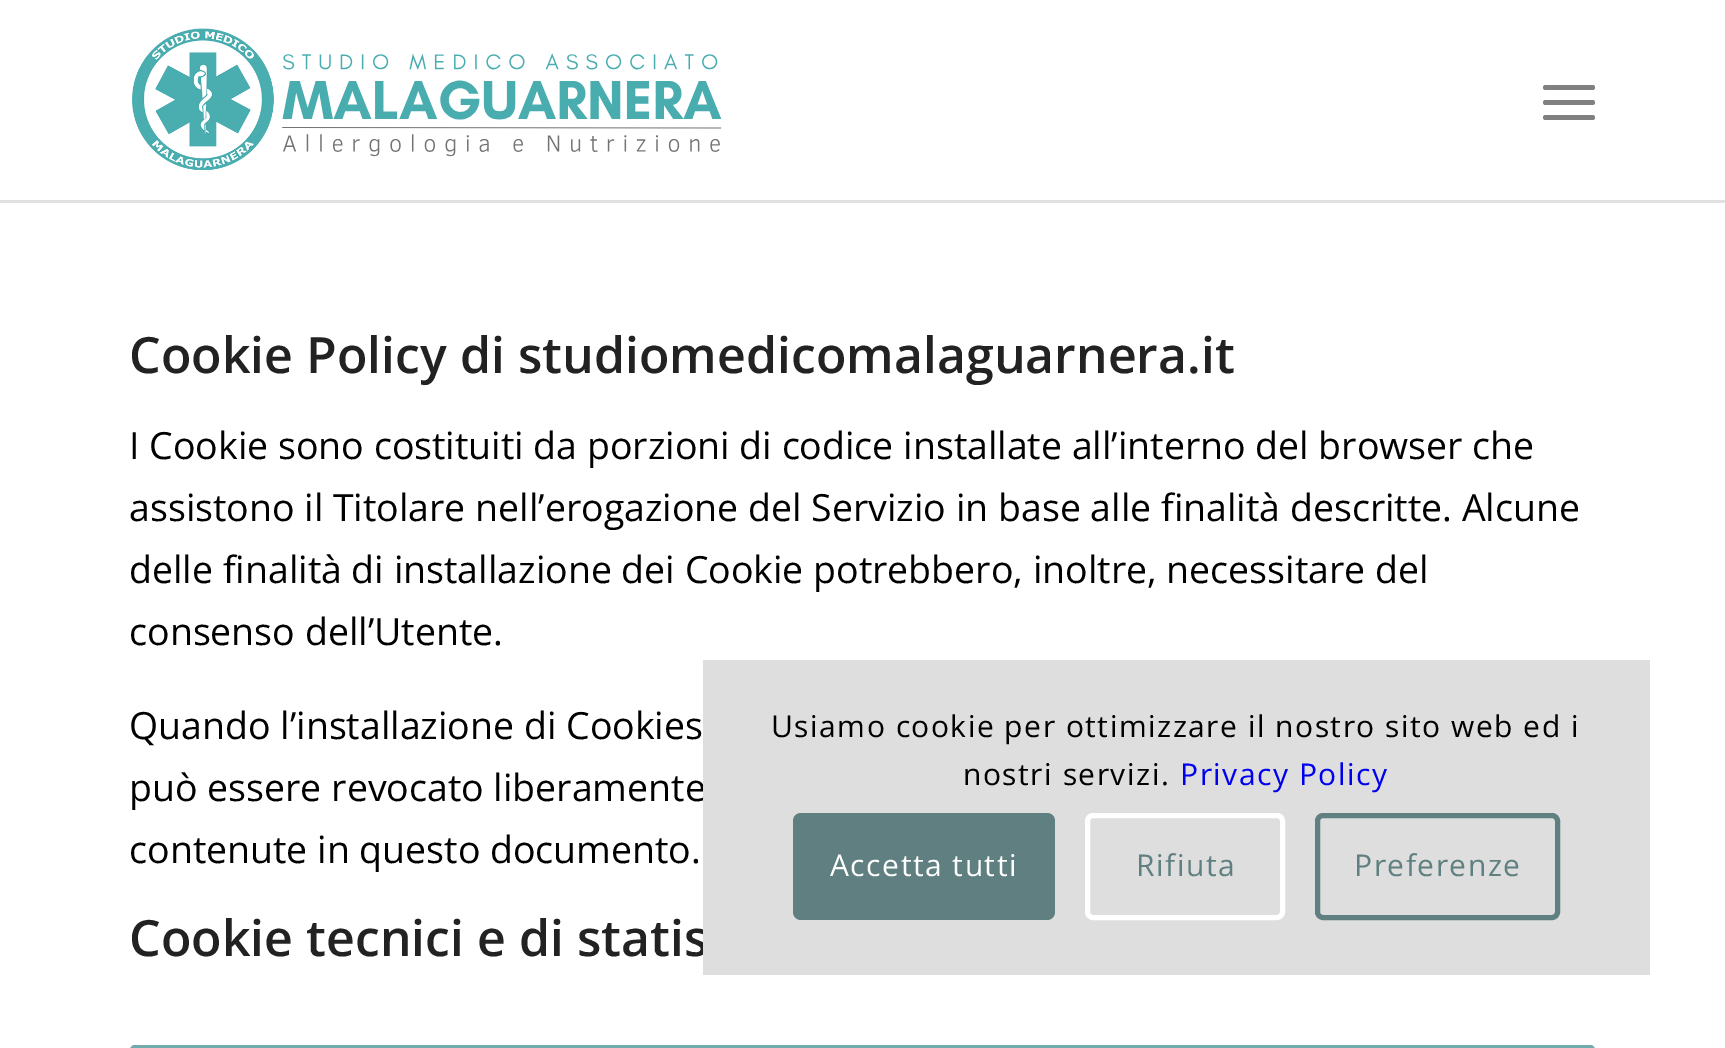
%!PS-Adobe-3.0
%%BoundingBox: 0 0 1725 1048
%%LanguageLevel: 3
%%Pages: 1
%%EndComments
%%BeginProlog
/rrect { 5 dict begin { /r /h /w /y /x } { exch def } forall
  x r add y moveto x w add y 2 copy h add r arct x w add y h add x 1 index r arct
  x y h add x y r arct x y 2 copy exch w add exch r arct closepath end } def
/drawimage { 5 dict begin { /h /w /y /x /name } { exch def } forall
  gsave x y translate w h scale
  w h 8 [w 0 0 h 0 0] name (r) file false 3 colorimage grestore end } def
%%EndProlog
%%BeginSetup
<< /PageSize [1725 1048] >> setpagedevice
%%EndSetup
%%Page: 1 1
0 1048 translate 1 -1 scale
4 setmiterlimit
1 setgray
0 0 1725 1048 rectfill
0.882 setgray
0 200 1725 3 rectfill
(images/1.raw) 132 28 590 142 drawimage
0.502 setgray
1543 100 52 5 2.5 rrect fill
1543 85 52 5 2.5 rrect fill
1543 115 52 5 2.5 rrect fill
0.443 0.671 0.682 setrgbcolor
3 setlinewidth
newpath 135 1046.5 moveto 1590 1046.5 lineto 1592 1046.5 1593.5 1048 1593.5 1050 curveto 1593.5 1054.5 lineto 131.5 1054.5 lineto 131.5 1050 lineto 131.5 1048 133 1046.5 135 1046.5 curveto closepath stroke
/OpenSans-SemiBold [50 0 0 -50 0 0] selectfont
0.133 setgray
129 373 moveto (Cookie Policy di studiomedicomalaguarnera.it) show
/OpenSans-Regular [37.5 0 0 -37.5 0 0] selectfont
0 setgray
129 459 moveto (I Cookie sono costituiti da porzioni di codice installate all’interno del browser che) show
129 521 moveto (assistono il Titolare nell’erogazione del Servizio in base alle finalità descritte. Alcune) show
129 583 moveto (delle finalità di installazione dei Cookie potrebbero, inoltre, necessitare del) show
129 645 moveto (consenso dell’Utente.) show
129 739 moveto (Quando l’installazione di Cookies) show
129 801 moveto (può essere revocato liberamente) show
129 863 moveto (contenute in questo documento.) show
/OpenSans-SemiBold [50 0 0 -50 0 0] selectfont
0.133 setgray
129 956 moveto (Cookie tecnici e di statis) show
0.871 setgray
703 660 947 315 rectfill
/OpenSans-Regular [30 0 0 -30 0 0] selectfont
0 setgray
771 737 moveto 1.5 0 (Usiamo cookie per ottimizzare il nostro sito web ed i) ashow
963 785 moveto 1.5 0 (nostri servizi.) ashow
0 0 0.933 setrgbcolor
1180 785 moveto 1.5 0 (Privacy Policy) ashow
0.373 0.498 0.502 setrgbcolor
793 813 262 107 8 rrect fill
1 setgray
830 876 moveto 1.5 0 (Accetta tutti) ashow
5 setlinewidth
1087.5 815.5 195 102 5.5 rrect stroke
0.373 0.498 0.502 setrgbcolor
1136 876 moveto 1.5 0 (Rifiuta) ashow
1317.5 815.5 240 102 5.5 rrect stroke
1354 876 moveto 1.5 0 (Preferenze) ashow
showpage
%%EOF
